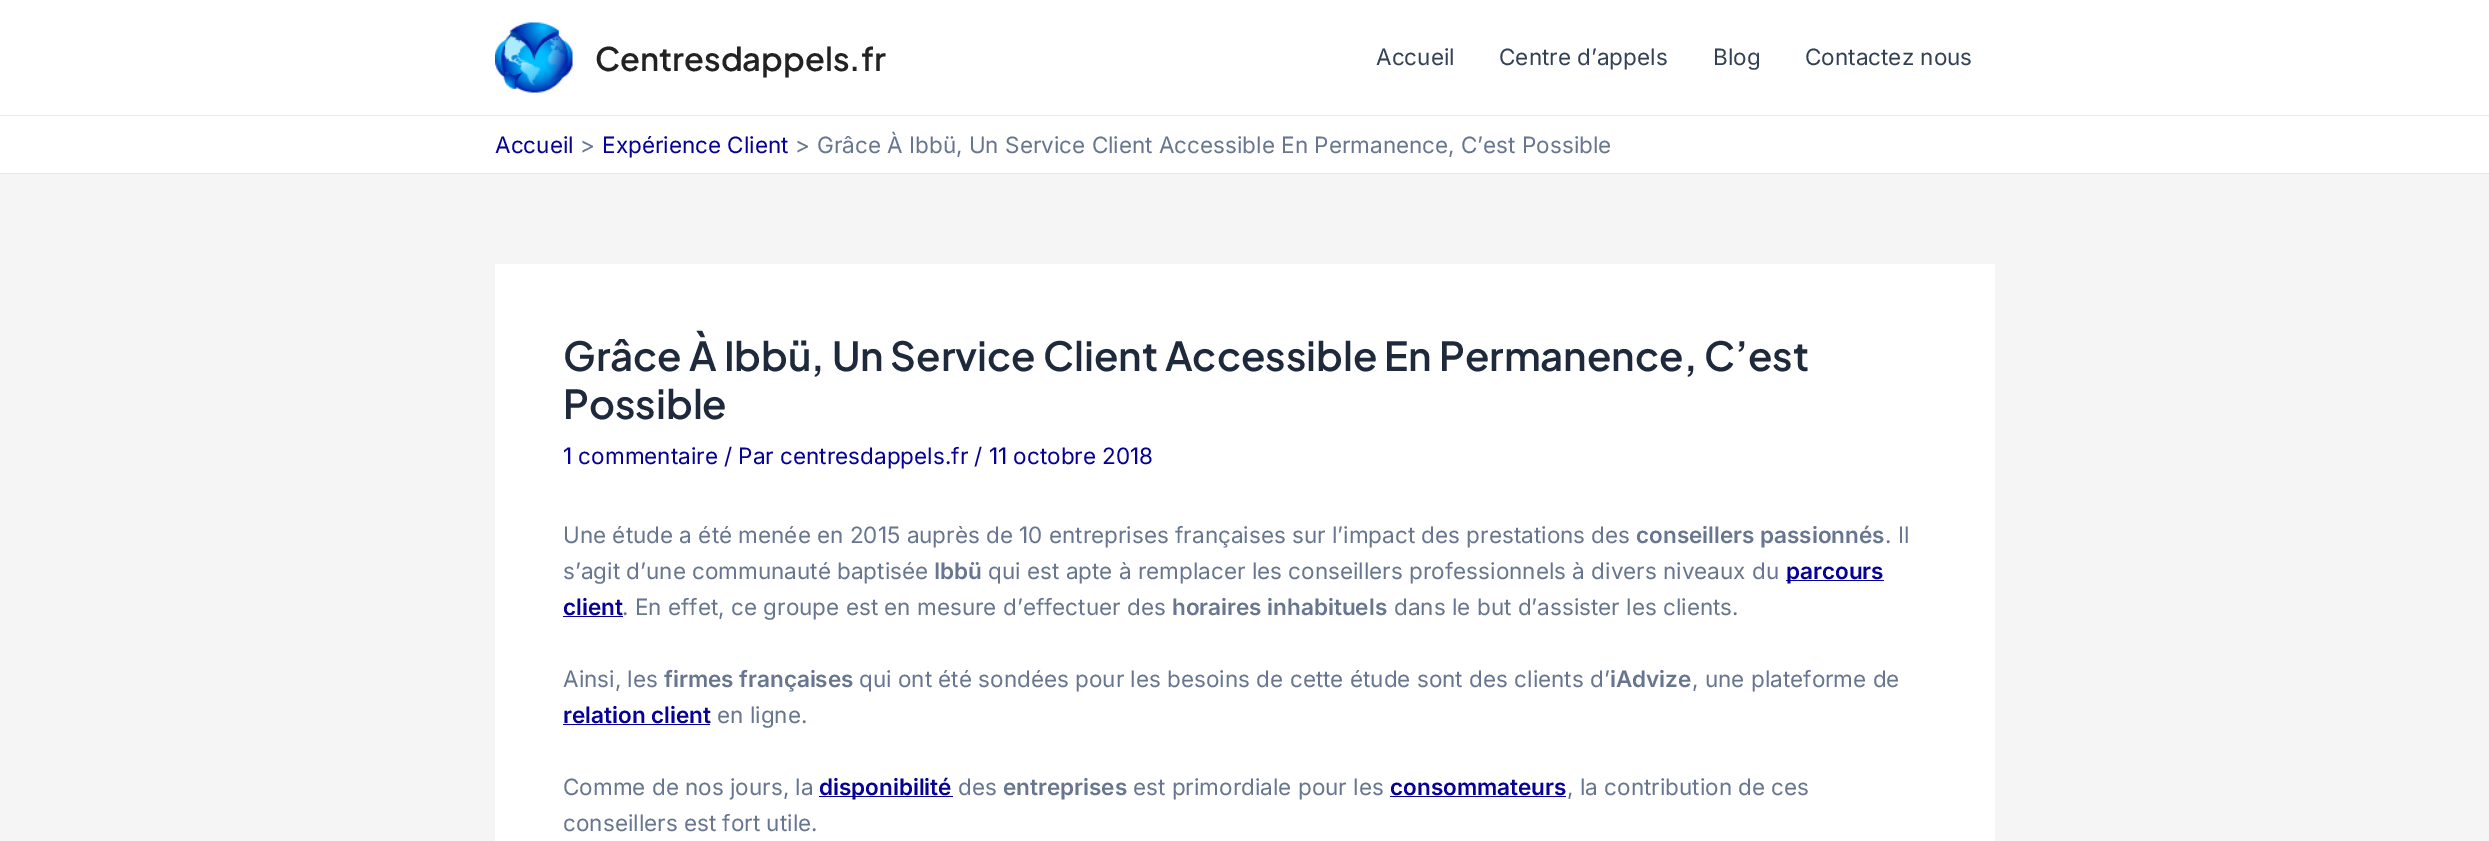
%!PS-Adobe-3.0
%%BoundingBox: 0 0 2489 841
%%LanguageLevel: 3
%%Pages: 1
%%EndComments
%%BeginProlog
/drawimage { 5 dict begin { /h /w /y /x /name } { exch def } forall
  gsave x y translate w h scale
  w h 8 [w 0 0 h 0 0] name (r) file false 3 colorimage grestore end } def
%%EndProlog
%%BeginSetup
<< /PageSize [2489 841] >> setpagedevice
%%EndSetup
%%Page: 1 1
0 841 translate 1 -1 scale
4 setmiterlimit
0.961 setgray
0 0 2489 841 rectfill
1 setgray
0 0 2489 115 rectfill
0.918 setgray
0 115 2489 1 rectfill
(images/1.raw) 495 22 78 71 drawimage
1 setgray
0 116 2489 57 rectfill
0.886 0.91 0.941 setrgbcolor
0 173 2489 1 rectfill
1 setgray
495 264 1500 577 rectfill
0.024 0 0.592 setrgbcolor
1786 580 98 1 rectfill
563 616 60 1 rectfill
563 724 147 1 rectfill
819 796 134 1 rectfill
1390 796 176 1 rectfill
/PlusJakartaSans-SemiBold [32.5 0 0 -32.5 0 0] selectfont
0.133 setgray
595 71 moveto (Centresdappels.fr) show
/Inter-Regular [22.5 0 0 -22.5 0 0] selectfont
0.2 0.255 0.333 setrgbcolor
1376 65 moveto (Accueil) show
1499 65 moveto (Centre d’appels) show
1713 65 moveto (Blog) show
1805 65 moveto (Contactez nous) show
0.024 0 0.592 setrgbcolor
495 153 moveto (Accueil) show
0.404 0.463 0.557 setrgbcolor
580 153 moveto (>) show
0.024 0 0.592 setrgbcolor
602 153 moveto (Expérience Client) show
0.404 0.463 0.557 setrgbcolor
795 153 moveto (>) show
817 153 moveto (Grâce À Ibbü, Un Service Client Accessible En Permanence, C’est Possible) show
/PlusJakartaSans-SemiBold [40 0 0 -40 0 0] selectfont
0.118 0.161 0.231 setrgbcolor
563 371 moveto (Grâce À Ibbü, Un Service Client Accessible En Permanence, C’est) show
563 419 moveto (Possible) show
/Inter-Regular [22.5 0 0 -22.5 0 0] selectfont
0.024 0 0.592 setrgbcolor
563 464 moveto (1 commentaire / Par centresdappels.fr / 11 octobre 2018) show
0.404 0.463 0.557 setrgbcolor
563 543 moveto (Une étude a été menée en 2015 auprès de 10 entreprises françaises sur l’impact des prestations des) show
/Inter-SemiBold [22.5 0 0 -22.5 0 0] selectfont
1636 543 moveto (conseillers passionnés) show
/Inter-Regular [22.5 0 0 -22.5 0 0] selectfont
1885 543 moveto (. Il) show
563 579 moveto (s’agit d’une communauté baptisée) show
/Inter-SemiBold [22.5 0 0 -22.5 0 0] selectfont
934 579 moveto (Ibbü) show
/Inter-Regular [22.5 0 0 -22.5 0 0] selectfont
988 579 moveto (qui est apte à remplacer les conseillers professionnels à divers niveaux du) show
/Inter-SemiBold [22.5 0 0 -22.5 0 0] selectfont
0.024 0 0.592 setrgbcolor
1786 579 moveto (parcours) show
563 615 moveto (client) show
/Inter-Regular [22.5 0 0 -22.5 0 0] selectfont
0.404 0.463 0.557 setrgbcolor
622 615 moveto (. En effet, ce groupe est en mesure d’effectuer des) show
/Inter-SemiBold [22.5 0 0 -22.5 0 0] selectfont
1172 615 moveto (horaires inhabituels) show
/Inter-Regular [22.5 0 0 -22.5 0 0] selectfont
1394 615 moveto (dans le but d’assister les clients.) show
563 687 moveto (Ainsi, les) show
/Inter-SemiBold [22.5 0 0 -22.5 0 0] selectfont
664 687 moveto (firmes françaises) show
/Inter-Regular [22.5 0 0 -22.5 0 0] selectfont
859 687 moveto (qui ont été sondées pour les besoins de cette étude sont des clients d’) show
/Inter-SemiBold [22.5 0 0 -22.5 0 0] selectfont
1610 687 moveto (iAdvize) show
/Inter-Regular [22.5 0 0 -22.5 0 0] selectfont
1692 687 moveto (, une plateforme de) show
/Inter-SemiBold [22.5 0 0 -22.5 0 0] selectfont
0.024 0 0.592 setrgbcolor
563 723 moveto (relation client) show
/Inter-Regular [22.5 0 0 -22.5 0 0] selectfont
0.404 0.463 0.557 setrgbcolor
717 723 moveto (en ligne.) show
563 795 moveto (Comme de nos jours, la) show
/Inter-SemiBold [22.5 0 0 -22.5 0 0] selectfont
0.024 0 0.592 setrgbcolor
819 795 moveto (disponibilité) show
/Inter-Regular [22.5 0 0 -22.5 0 0] selectfont
0.404 0.463 0.557 setrgbcolor
958 795 moveto (des) show
/Inter-SemiBold [22.5 0 0 -22.5 0 0] selectfont
1003 795 moveto (entreprises) show
/Inter-Regular [22.5 0 0 -22.5 0 0] selectfont
1133 795 moveto (est primordiale pour les) show
/Inter-SemiBold [22.5 0 0 -22.5 0 0] selectfont
0.024 0 0.592 setrgbcolor
1390 795 moveto (consommateurs) show
/Inter-Regular [22.5 0 0 -22.5 0 0] selectfont
0.404 0.463 0.557 setrgbcolor
1567 795 moveto (, la contribution de ces) show
563 831 moveto (conseillers est fort utile.) show
showpage
%%EOF
